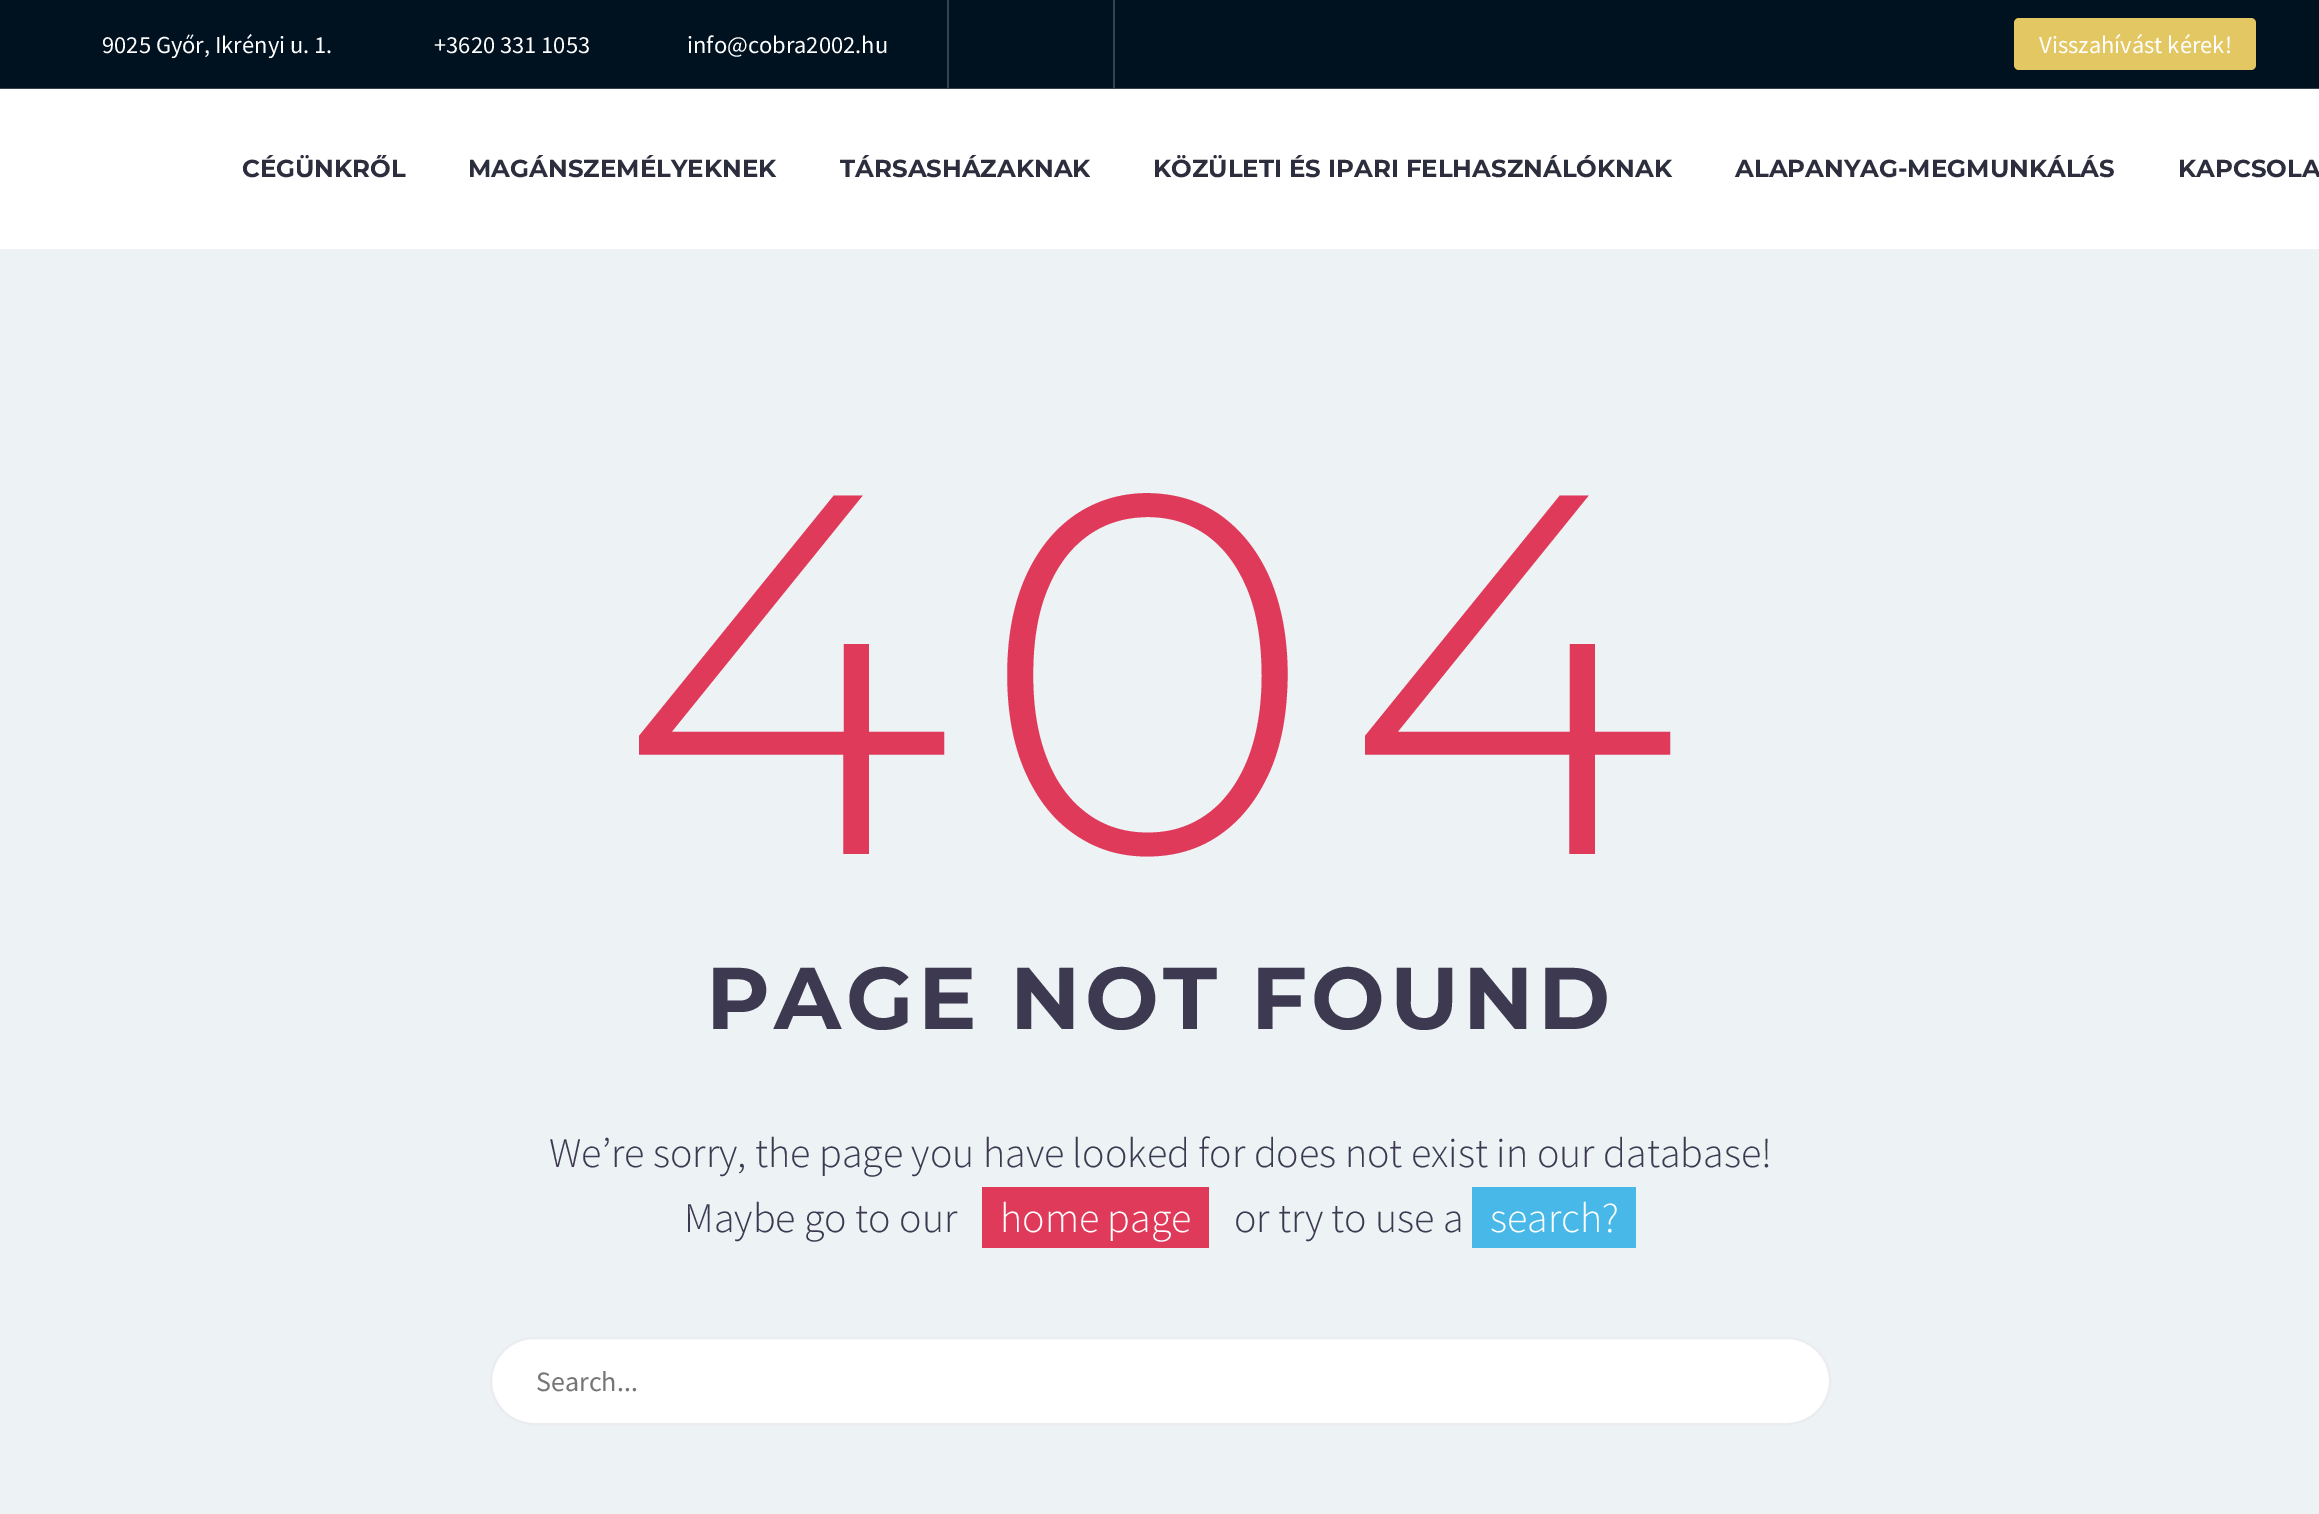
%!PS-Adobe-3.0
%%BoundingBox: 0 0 2319 1514
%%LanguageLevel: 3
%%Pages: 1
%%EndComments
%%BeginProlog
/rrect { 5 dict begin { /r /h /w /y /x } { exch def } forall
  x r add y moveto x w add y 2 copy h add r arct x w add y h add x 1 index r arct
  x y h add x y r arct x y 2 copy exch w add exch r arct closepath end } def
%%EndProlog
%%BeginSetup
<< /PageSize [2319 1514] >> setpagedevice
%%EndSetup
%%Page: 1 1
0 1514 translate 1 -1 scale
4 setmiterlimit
0 0.067 0.125 setrgbcolor
0 0 2319 1514 rectfill
0.212 0.263 0.31 setrgbcolor
0 88 2319 1 rectfill
947 0 2 88 rectfill
1113 0 2 88 rectfill
0.89 0.78 0.384 setrgbcolor
2014 18 242 52 5 rrect fill
1 setgray
0 89 2319 160 rectfill
0.929 0.949 0.961 setrgbcolor
0 249 2319 1265 rectfill
0.878 0.227 0.357 setrgbcolor
982 1187 227 61 rectfill
0.278 0.722 0.906 setrgbcolor
1472 1187 164 61 rectfill
1 setgray
491 1338 1339 86 43 rrect gsave fill grestore
0.918 0.925 0.941 setrgbcolor
2 setlinewidth
stroke
/SourceSansPro-Regular [24.5 0 0 -24.5 0 0] selectfont
1 setgray
102 53 moveto (9025 Győr, Ikrényi u. 1.) show
434 53 moveto (+3620 331 1053) show
687 53 moveto (info@cobra2002.hu) show
2039 53 moveto (Visszahívást kérek!) show
/Montserrat-Bold [24.5 0 0 -24.5 0 0] selectfont
0.173 0.18 0.239 setrgbcolor
242 177 moveto (CÉGÜNKRŐL) show
468 177 moveto (MAGÁNSZEMÉLYEKNEK) show
840 177 moveto (TÁRSASHÁZAKNAK) show
1153 177 moveto (KÖZÜLETI ÉS IPARI FELHASZNÁLÓKNAK) show
1735 177 moveto (ALAPANYAG-MEGMUNKÁLÁS) show
2178 177 moveto (KAPCSOLA) show
/Montserrat-Light [514 0 0 -514 0 0] selectfont
0.878 0.227 0.357 setrgbcolor
617 854 moveto 26 0 (404) ashow
/Montserrat-Bold [87.5 0 0 -87.5 0 0] selectfont
0.235 0.224 0.314 setrgbcolor
706 1029 moveto 4.4 0 (PAGE NOT FOUND) ashow
/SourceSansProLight-Light [42 0 0 -42 0 0] selectfont
549 1167 moveto (We’re sorry, the page you have looked for does not exist in our database!) show
684 1232 moveto (Maybe go to our) show
1 setgray
1000 1232 moveto (home page) show
0.235 0.224 0.314 setrgbcolor
1234 1232 moveto (or try to use a) show
1 setgray
1490 1232 moveto (search?) show
/SourceSansPro-Regular [28 0 0 -28 0 0] selectfont
0.459 setgray
536 1391 moveto (Search...) show
showpage
%%EOF
